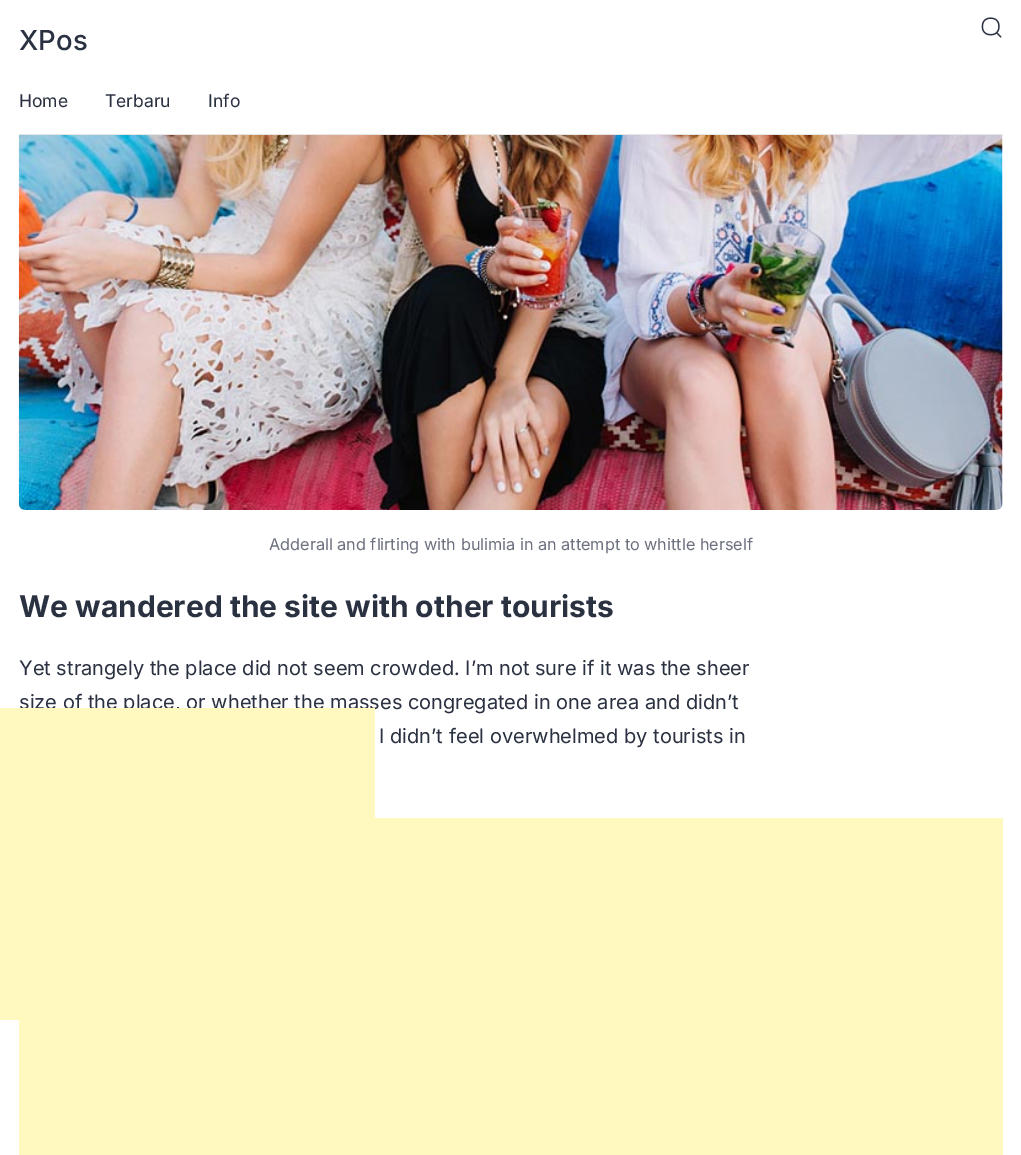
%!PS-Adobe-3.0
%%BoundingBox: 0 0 1021 1155
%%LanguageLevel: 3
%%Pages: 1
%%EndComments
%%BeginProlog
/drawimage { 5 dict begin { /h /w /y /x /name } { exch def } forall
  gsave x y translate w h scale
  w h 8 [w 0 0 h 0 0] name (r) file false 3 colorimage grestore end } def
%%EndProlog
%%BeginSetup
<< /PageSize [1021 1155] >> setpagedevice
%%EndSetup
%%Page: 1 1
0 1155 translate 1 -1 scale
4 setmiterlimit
1 setgray
0 0 1021 1155 rectfill
(images/1.raw) 981 17 21 21 drawimage
0.902 setgray
19 134 984 1 rectfill
(images/2.raw) 18 135 985 375 drawimage
1 0.976 0.753 setrgbcolor
19 818 984 337 rectfill
/Inter-Medium [27.5 0 0 -27.5 0 0] selectfont
0.165 0.192 0.255 setrgbcolor
19 50 moveto (XPos) show
/Inter-Regular [17.5 0 0 -17.5 0 0] selectfont
19 107 moveto (Home) show
105 107 moveto (Terbaru) show
208 107 moveto (Info) show
/Inter-Regular [16.25 0 0 -16.25 0 0] selectfont
0.427 0.443 0.498 setrgbcolor
269 550 moveto (Adderall and flirting with bulimia in an attempt to whittle herself) show
/Inter-Bold [30 0 0 -30 0 0] selectfont
0.165 0.192 0.255 setrgbcolor
19 617 moveto (We wandered the site with other tourists) show
/Inter-Regular [20 0 0 -20 0 0] selectfont
19 675 moveto (Yet strangely the place did not seem crowded. I’m not sure if it was the sheer) show
19 709 moveto (size of the place, or whether the masses congregated in one area and didn’t) show
379 743 moveto (I didn’t feel overwhelmed by tourists in) show
1 0.976 0.753 setrgbcolor
0 708 375 312 rectfill
showpage
%%EOF
